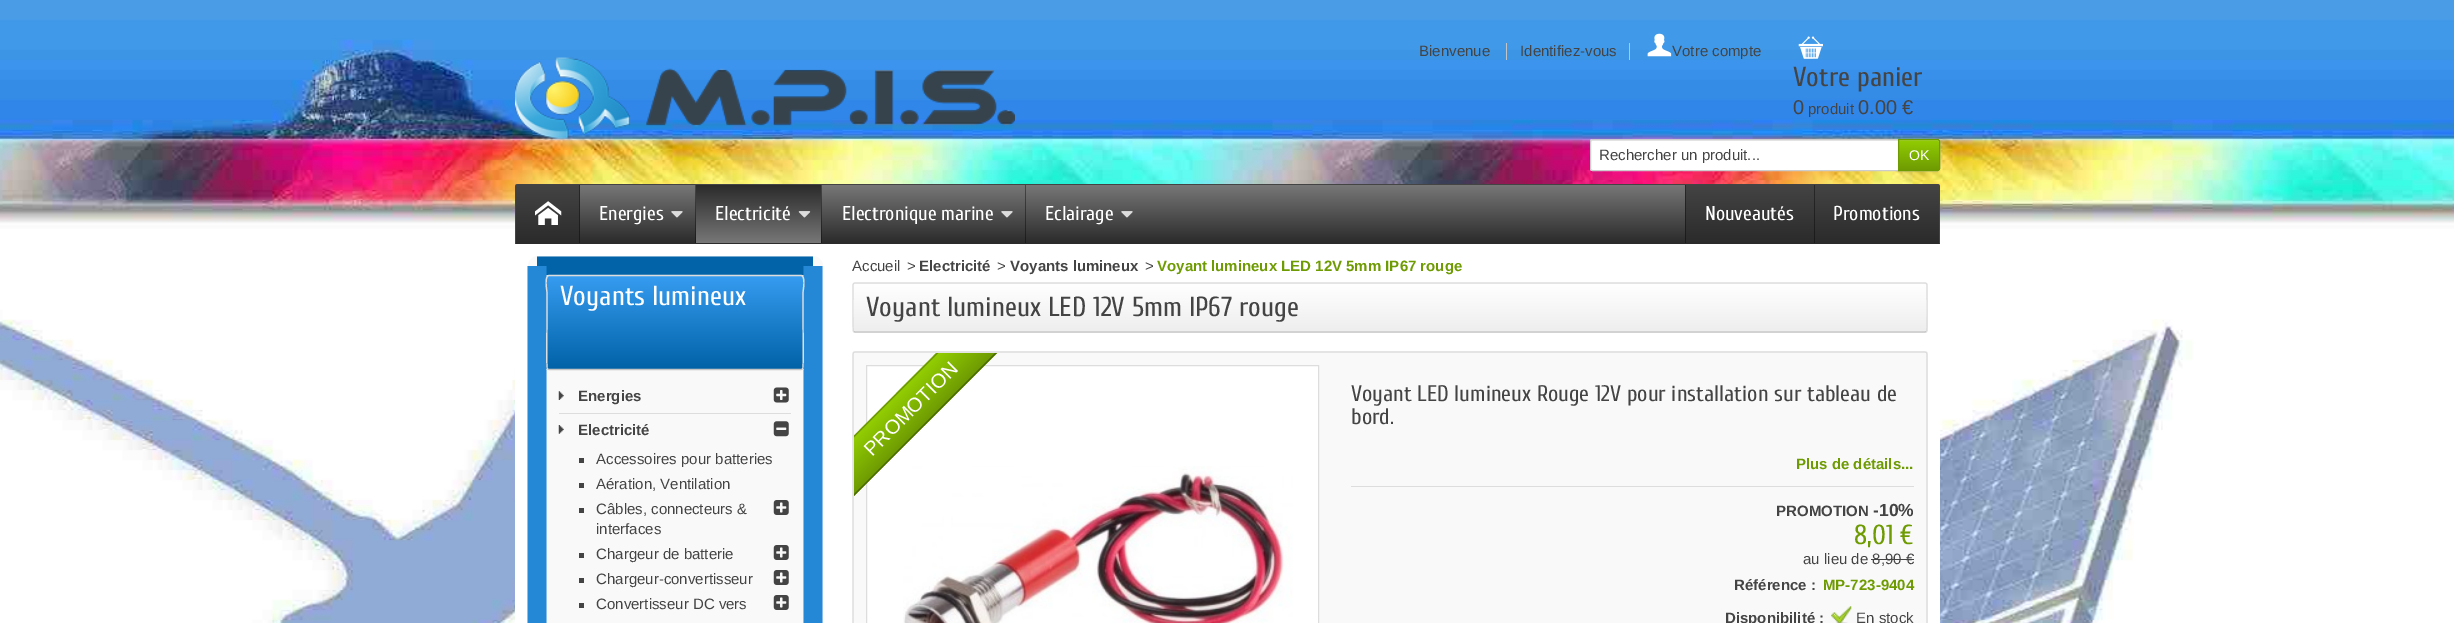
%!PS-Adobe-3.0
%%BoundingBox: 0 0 2454 623
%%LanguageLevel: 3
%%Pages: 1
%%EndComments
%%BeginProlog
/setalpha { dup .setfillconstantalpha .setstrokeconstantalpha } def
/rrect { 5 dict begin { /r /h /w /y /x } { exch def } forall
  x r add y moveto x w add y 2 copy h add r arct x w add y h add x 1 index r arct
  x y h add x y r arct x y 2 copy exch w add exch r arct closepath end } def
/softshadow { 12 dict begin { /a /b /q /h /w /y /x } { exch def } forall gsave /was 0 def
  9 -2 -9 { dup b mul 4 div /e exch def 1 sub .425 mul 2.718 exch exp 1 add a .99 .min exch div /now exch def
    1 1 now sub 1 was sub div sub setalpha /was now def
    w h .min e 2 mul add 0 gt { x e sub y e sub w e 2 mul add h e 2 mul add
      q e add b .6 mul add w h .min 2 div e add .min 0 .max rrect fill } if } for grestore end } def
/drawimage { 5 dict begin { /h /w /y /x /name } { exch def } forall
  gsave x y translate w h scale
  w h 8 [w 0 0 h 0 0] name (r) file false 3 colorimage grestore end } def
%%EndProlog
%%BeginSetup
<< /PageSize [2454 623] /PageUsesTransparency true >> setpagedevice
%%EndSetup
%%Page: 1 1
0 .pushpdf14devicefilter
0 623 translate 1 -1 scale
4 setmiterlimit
1 setgray
0 0 2454 623 rectfill
(images/1.raw) 0 0 2454 623 drawimage
(images/2.raw) 515 57 500 82 drawimage
0.769 setgray
1629 43 1 17 rectfill
1506 43 1 17 rectfill
(images/3.raw) 1647 33 25 24 drawimage
(images/4.raw) 1798 36 25 23 drawimage
1 setgray
1590 139 350 32 2.5 rrect fill
0.925 setgray
newpath 1592 141 moveto 1938 141 lineto 1939 142 lineto 1939 140 lineto 1765 140 lineto 1592 140 lineto 1591 141 lineto 1591 142 lineto closepath fill
0.8 setgray
1590.5 139.5 349 31 2 rrect stroke
0 setgray
1898 140 42 33 2.5 1 0.05 softshadow
gsave newpath 1899 140 moveto 1940 140 lineto 1940 170 lineto 1899 170 lineto closepath clip newpath
<< /ShadingType 2 /ColorSpace /DeviceRGB /Coords [1919 140 1919 170] /Extend [true true] /Function << /FunctionType 2 /Domain [0 1] /C0 [0.573 0.804 0.012] /C1 [0.431 0.608 0.008] /N 1 >> >> shfill grestore
0.655 0.839 0.208 setrgbcolor
newpath 1899 141 moveto 1938 141 lineto 1939 142 lineto 1939 141 lineto 1939 140 1939 140 1938 140 curveto 1899 140 lineto closepath fill
0.431 0.608 0.008 setrgbcolor
newpath 1898.5 139.5 moveto 1937.5 139.5 lineto 1938.5 139.5 1939.5 140.5 1939.5 141.5 curveto 1939.5 168.5 lineto 1939.5 169.5 1938.5 170.5 1937.5 170.5 curveto 1898.5 170.5 lineto closepath stroke
0.345 setgray
newpath 517.5 184 moveto 1937.5 184 lineto 1939 184 1940 185 1940 186.5 curveto 1940 244 lineto 515 244 lineto 515 186.5 lineto 515 185 516 184 517.5 184 curveto closepath fill
gsave newpath 515 185 moveto 1940 185 lineto 1940 242 lineto 515 242 lineto closepath clip newpath
<< /ShadingType 2 /ColorSpace /DeviceRGB /Coords [1228 185 1228 243] /Extend [true true] /Function << /FunctionType 2 /Domain [0 1] /C0 [0.467 0.467 0.467] /C1 [0.169 0.169 0.169] /N 1 >> >> shfill grestore
0.267 setgray
newpath 518 184 moveto 516 185 lineto 517 185 lineto 518 185 lineto 1938 185 lineto 1939 185 lineto 1938 184 lineto closepath fill
newpath 1939 185 moveto 1940 186 lineto 1940 244 lineto 1938 242 lineto 1939 242 lineto 1939 186 lineto 1938 185 lineto closepath fill
0.169 setgray
newpath 1940 244 moveto 515 244 lineto 517 242 lineto 1938 242 lineto closepath fill
0.267 setgray
newpath 515 244 moveto 517 242 lineto 516 242 lineto 516 186 lineto 517 185 lineto 516 185 lineto 515 186 lineto closepath fill
gsave newpath 516 185 moveto 580 185 lineto 580 243 lineto 516 243 lineto closepath clip newpath
<< /ShadingType 2 /ColorSpace /DeviceRGB /Coords [548 185 548 243] /Extend [true true] /Function << /FunctionType 2 /Domain [0 1] /C0 [0.267 0.267 0.267] /C1 [0.169 0.169 0.169] /N 1 >> >> shfill grestore
0.4 setalpha
0 setgray
579 185 1 58 rectfill
1 setalpha
(images/5.raw) 535 201 27 24 drawimage
0.4 setalpha
695 185 1 58 rectfill
1 setalpha
(images/6.raw) 671 211 12 7 drawimage
0.4 setalpha
821 185 1 58 rectfill
1 setalpha
gsave newpath 696 185 moveto 821 185 lineto 821 243 lineto 696 243 lineto closepath clip newpath
<< /ShadingType 2 /ColorSpace /DeviceRGB /Coords [759 185 759 243] /Extend [true true] /Function << /FunctionType 2 /Domain [0 1] /C0 [0.169 0.169 0.169] /C1 [0.467 0.467 0.467] /N 1 >> >> shfill grestore
(images/7.raw) 798 211 13 7 drawimage
0.4 setalpha
1025 185 1 58 rectfill
1 setalpha
(images/6.raw) 1001 211 12 7 drawimage
(images/6.raw) 1121 211 12 7 drawimage
gsave newpath 1685 185 moveto 1814 185 lineto 1814 240 lineto 1685 240 lineto closepath clip newpath
<< /ShadingType 2 /ColorSpace /DeviceRGB /Coords [1750 185 1750 243] /Extend [true true] /Function << /FunctionType 2 /Domain [0 1] /C0 [0.267 0.267 0.267] /C1 [0.169 0.169 0.169] /N 1 >> >> shfill grestore
0.4 setalpha
1685 185 1 58 rectfill
1 setalpha
gsave newpath 1814 185 moveto 1939 185 lineto 1939 243 lineto 1814 243 lineto closepath clip newpath
<< /ShadingType 2 /ColorSpace /DeviceRGB /Coords [1877 185 1877 243] /Extend [true true] /Function << /FunctionType 2 /Domain [0 1] /C0 [0.267 0.267 0.267] /C1 [0.169 0.169 0.169] /N 1 >> >> shfill grestore
0.4 setalpha
1814 185 1 58 rectfill
1 setalpha
1 setgray
515 260 1425 363 rectfill
0.976 setgray
528 256 295 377 10 rrect fill
0.008 0.388 0.659 setrgbcolor
18.8 setlinewidth
newpath 537 266 moveto 813 266 lineto stroke
0.141 0.533 0.843 setrgbcolor
newpath 813 266 moveto 813 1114 lineto stroke
newpath 537 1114 moveto 537 266 lineto stroke
0.973 setgray
546 275 258 95 2.5 rrect fill
gsave
546 275 258 95 2.5 rrect clip newpath
gsave newpath 546 276 moveto 804 276 lineto 804 369 lineto 546 369 lineto closepath clip newpath
<< /ShadingType 2 /ColorSpace /DeviceRGB /Coords [675 276 675 369] /Extend [true true] /Function << /FunctionType 2 /Domain [0 1] /C0 [0.212 0.612 0.941] /C1 [0.004 0.384 0.655] /N 1 >> >> shfill grestore
grestore
0.769 setgray
1.2 setlinewidth
newpath 802.5 369 moveto 801 369.5 lineto 549 369.5 lineto 547.5 369 lineto stroke
0.867 setgray
newpath 547.5 369 moveto 546 367 547 327.5 547 322.5 curveto 547 292.5 lineto 547 291.5 544 275.5 549 275.5 curveto 801 275.5 lineto 806 275.5 803 291.5 803 292.5 curveto 803 322.5 lineto 803 327.5 804 367 802.5 369 curveto stroke
(images/8.raw) 558 391 6 9 drawimage
559 413 232 1 rectfill
(images/9.raw) 773 387 16 16 drawimage
(images/10.raw) 558 425 6 9 drawimage
(images/11.raw) 773 421 16 16 drawimage
0.267 setgray
579 458 5 5 rectfill
579 483 5 5 rectfill
579 508 5 5 rectfill
(images/12.raw) 773 500 16 15 drawimage
579 553 5 5 rectfill
(images/12.raw) 773 545 16 15 drawimage
579 578 5 5 rectfill
(images/12.raw) 773 570 16 15 drawimage
579 603 5 5 rectfill
(images/12.raw) 773 595 16 15 drawimage
0.973 setgray
853 283 1075 50 2.5 rrect fill
gsave newpath 853 284 moveto 1928 284 lineto 1928 331 lineto 853 331 lineto closepath clip newpath
<< /ShadingType 2 /ColorSpace /DeviceRGB /Coords [1390 284 1390 331] /Extend [true true] /Function << /FunctionType 2 /Domain [0 1] /C0 [1 1 1] /C1 [0.933 0.933 0.933] /N 1 >> >> shfill grestore
0.769 setgray
newpath 1926.5 331.5 moveto 1925 332 lineto 855 332 lineto 853.5 331.5 lineto stroke
0.867 setgray
newpath 853.5 331.5 moveto 852.5 330 853 290 853 285 curveto 853 284 854 283 855 283 curveto 1925 283 lineto 1926 283 1927 284 1927 285 curveto 1927 290 1927.5 330 1926.5 331.5 curveto stroke
0.976 setgray
853 351 1075 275 2.5 rrect fill
0.867 setgray
newpath 853.5 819 moveto 853 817.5 lineto 853 354 lineto 853.5 352.5 lineto 855 352 lineto 1925 352 lineto 1926.5 352.5 lineto 1927 354 lineto 1927 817.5 lineto 1926.5 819 lineto stroke
1 setgray
newpath 866.5 365.5 moveto 1318.5 365.5 lineto 1318.5 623.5 lineto 866.5 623.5 lineto closepath gsave fill grestore
0.867 setgray
1 setlinewidth
stroke
(images/13.raw) 903 466 390 157 drawimage
gsave
854 353 215 150 rectclip
0.514 0.725 0.008 setrgbcolor
newpath 822 468 moveto 970 319 lineto 971 319 973 319 974 319 curveto 1000 346 lineto 1001 347 1001 349 1000 350 curveto 852 498 lineto 851 499 849 499 848 498 curveto 822 472 lineto 821 471 821 469 822 468 curveto closepath fill
gsave newpath 849 499 moveto 821 471 lineto 973 319 lineto 1001 347 lineto closepath clip newpath
<< /ShadingType 2 /ColorSpace /DeviceRGB /Coords [897 395 925 423] /Extend [true true] /Function << /FunctionType 2 /Domain [0 1] /C0 [0.573 0.804 0.012] /C1 [0.431 0.608 0.008] /N 1 >> >> shfill grestore
0.29 0.412 0.004 setrgbcolor
1.3 setlinewidth
newpath 1000.5 348 moveto 1000 349 lineto 851.5 497.5 lineto 850 498 lineto stroke
0.431 0.608 0.008 setrgbcolor
newpath 850 498 moveto 848 498 837.5 486.5 835.5 484.5 curveto 826.5 475.5 lineto 826.5 475.5 820 471 822 468.5 curveto 970.5 320 lineto 973 317.5 977.5 324 978 324.5 curveto 986.5 333 lineto 988.5 335 1000.5 345.5 1000.5 348 curveto stroke
grestore
1351 486 563 1 rectfill
0.267 setgray
1871 559 43 1 rectfill
(images/14.raw) 1831 606 21 17 drawimage
/LiberationSans-Regular [15 0 0 -15 0 0] selectfont
1419 56 moveto (Bienvenue) show
1520 56 moveto (Identifiez-vous) show
1672 56 moveto (Votre compte) show
/Cuprum-Regular [27.5 0 0 -27.5 0 0] selectfont
1793 86 moveto (Votre panier) show
/LiberationSans-Regular [20 0 0 -20 0 0] selectfont
1793 114 moveto (0) show
/LiberationSans-Regular [15 0 0 -15 0 0] selectfont
1808 114 moveto (produit) show
/LiberationSans-Regular [20 0 0 -20 0 0] selectfont
1858 114 moveto (0.00 €) show
/LiberationSans-Regular [15 0 0 -15 0 0] selectfont
1599 160 moveto (Rechercher un produit...) show
/LiberationSans-Regular [14 0 0 -14 0 0] selectfont
1 setgray
1909 160 moveto (OK) show
/Cuprum-Regular [20 0 0 -20 0 0] selectfont
599 220 moveto (Energies) show
715 220 moveto (Electricité) show
842 220 moveto (Electronique marine) show
1045 220 moveto (Eclairage) show
1705 220 moveto (Nouveautés) show
1833 220 moveto (Promotions) show
/Cuprum-Regular [27.5 0 0 -27.5 0 0] selectfont
560 305 moveto (Voyants lumineux) show
/LiberationSans-Bold [15 0 0 -15 0 0] selectfont
0.267 setgray
578 401 moveto (Energies) show
578 435 moveto (Electricité) show
/LiberationSans-Regular [15 0 0 -15 0 0] selectfont
596 464 moveto (Accessoires pour batteries) show
596 489 moveto (Aération, Ventilation) show
596 514 moveto (Câbles, connecteurs &) show
596 534 moveto (interfaces) show
596 559 moveto (Chargeur de batterie) show
596 584 moveto (Chargeur-convertisseur) show
596 609 moveto (Convertisseur DC vers) show
852 271 moveto (Accueil) show
907 271 moveto (>) show
/LiberationSans-Bold [15 0 0 -15 0 0] selectfont
919 271 moveto (Electricité) show
/LiberationSans-Regular [15 0 0 -15 0 0] selectfont
997 271 moveto (>) show
/LiberationSans-Bold [15 0 0 -15 0 0] selectfont
1010 271 moveto (Voyants lumineux) show
/LiberationSans-Regular [15 0 0 -15 0 0] selectfont
1145 271 moveto (>) show
/LiberationSans-Bold [15 0 0 -15 0 0] selectfont
0.431 0.608 0.008 setrgbcolor
1157 271 moveto (Voyant lumineux LED 12V 5mm IP67 rouge) show
/Cuprum-Regular [27.5 0 0 -27.5 0 0] selectfont
0.267 setgray
866 316 moveto (Voyant lumineux LED 12V 5mm IP67 rouge) show
/LiberationSans-Regular [20 0 0 -20 0 0] selectfont
1 setgray
gsave 872 457 translate -45 rotate 0 0 moveto (PROMOTION) show grestore
/Cuprum-Regular [22.5 0 0 -22.5 0 0] selectfont
0.267 setgray
1351 401 moveto (Voyant LED lumineux Rouge 12V pour installation sur tableau de) show
1351 424 moveto (bord.) show
/LiberationSans-Bold [15 0 0 -15 0 0] selectfont
0.431 0.608 0.008 setrgbcolor
1796 469 moveto (Plus de détails...) show
0.267 setgray
1776 516 moveto (PROMOTION) show
/LiberationSans-Bold [17.5 0 0 -17.5 0 0] selectfont
1873 516 moveto (-10%) show
/Cuprum-Regular [27.5 0 0 -27.5 0 0] selectfont
0.431 0.608 0.008 setrgbcolor
1854 544 moveto (8,01 €) show
/LiberationSans-Regular [15 0 0 -15 0 0] selectfont
0.267 setgray
1803 564 moveto (au lieu de 8,90 €) show
/LiberationSans-Bold [15 0 0 -15 0 0] selectfont
1734 590 moveto (Référence :) show
0.431 0.608 0.008 setrgbcolor
1823 590 moveto (MP-723-9404) show
0.267 setgray
1725 623 moveto (Disponibilité :) show
/LiberationSans-Regular [15 0 0 -15 0 0] selectfont
1856 623 moveto (En stock) show
.poppdf14devicefilter showpage
%%EOF
